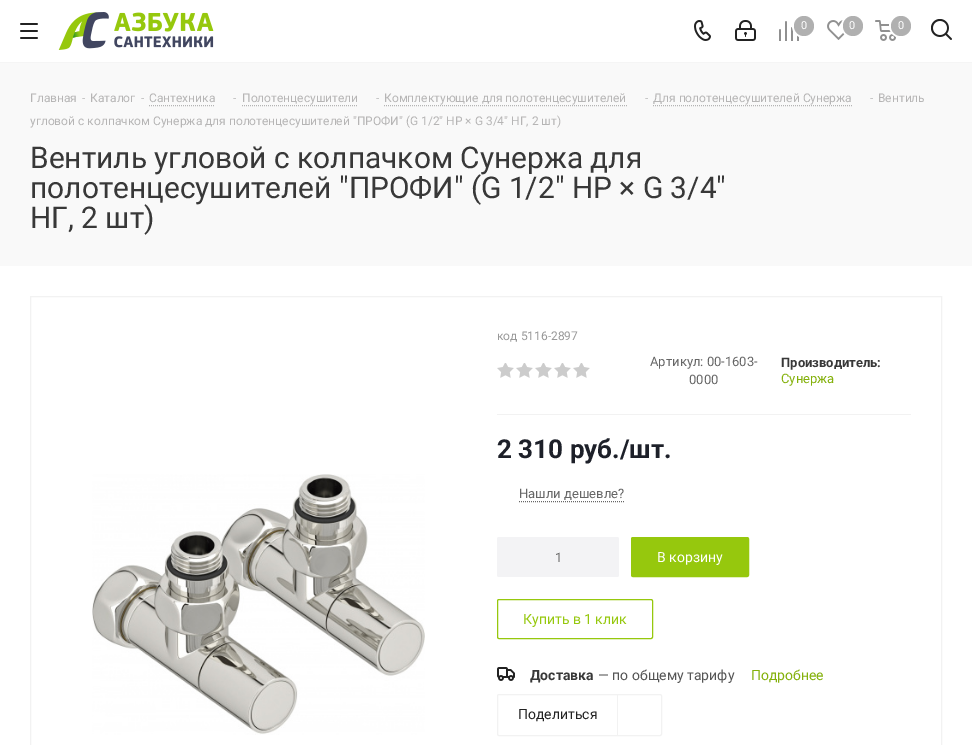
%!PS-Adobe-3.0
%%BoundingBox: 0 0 972 745
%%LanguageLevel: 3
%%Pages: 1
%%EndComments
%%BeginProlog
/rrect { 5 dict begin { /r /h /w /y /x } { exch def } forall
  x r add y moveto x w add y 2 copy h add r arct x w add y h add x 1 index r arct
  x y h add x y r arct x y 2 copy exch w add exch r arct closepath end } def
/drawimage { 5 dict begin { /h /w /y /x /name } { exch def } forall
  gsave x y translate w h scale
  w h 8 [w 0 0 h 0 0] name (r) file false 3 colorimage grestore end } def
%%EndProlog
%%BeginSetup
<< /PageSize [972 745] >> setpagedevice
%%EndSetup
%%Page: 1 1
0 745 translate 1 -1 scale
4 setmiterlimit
1 setgray
0 0 972 745 rectfill
0.961 setgray
0 62 972 1 rectfill
(images/1.raw) 20 23 18 16 drawimage
(images/2.raw) 58 12 156 38 drawimage
(images/3.raw) 694 20 17 21 drawimage
(images/4.raw) 735 20 21 21 drawimage
(images/5.raw) 779 21 20 20 drawimage
1 setgray
2 setlinewidth
newpath 804 26 11 0 360 arc closepath stroke
0.69 setgray
newpath 804 26 10 0 360 arc closepath fill
(images/6.raw) 827 20 19 20 drawimage
1 setgray
newpath 853 26 11 0 360 arc closepath stroke
0.69 setgray
newpath 853 26 10 0 360 arc closepath fill
(images/7.raw) 875 20 21 21 drawimage
1 setgray
newpath 901 26 11 0 360 arc closepath stroke
0.69 setgray
newpath 901 26 10 0 360 arc closepath fill
(images/8.raw) 931 19 21 21 drawimage
0.976 setgray
0 63 972 203 rectfill
0.706 setgray
1 setlinewidth
[1 1] 0 setdash
newpath 149 105.5 moveto 215 105.5 lineto stroke
newpath 242 105.5 moveto 358 105.5 lineto stroke
newpath 384 105.5 moveto 627 105.5 lineto stroke
newpath 653 105.5 moveto 852 105.5 lineto stroke
0.949 setgray
[] 0 setdash
30.5 296.5 911 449 rectstroke
(images/9.raw) 92 474 333 261 drawimage
497 414 414 1 rectfill
(images/10.raw) 497 363 17 15 drawimage
(images/10.raw) 516 363 17 15 drawimage
(images/10.raw) 535 363 17 15 drawimage
(images/10.raw) 554 363 17 15 drawimage
(images/10.raw) 573 363 17 15 drawimage
0.4 setgray
[1 1] 0 setdash
newpath 519 501.5 moveto 624 501.5 lineto stroke
0.953 0.953 0.961 setrgbcolor
497 537 122 40 2 rrect fill
0.588 0.784 0.051 setrgbcolor
631.5 537.5 117 39 1.5 rrect gsave fill grestore
[] 0 setdash
stroke
497.5 599.5 155 39 1.5 rrect stroke
(images/11.raw) 497 667 18 14 drawimage
0.949 setgray
617 694 1 42 rectfill
497.5 694.5 164 41 1.5 rrect stroke
/Roboto-Regular [11 0 0 -11 0 0] selectfont
1 setgray
801 29 moveto (0) show
849 29 moveto (0) show
898 29 moveto (0) show
/Roboto-Regular [12 0 0 -12 0 0] selectfont
0.714 0.71 0.71 setrgbcolor
30 102 moveto (Главная) show
82 102 moveto (-) show
90 102 moveto (Каталог) show
141 102 moveto (-) show
149 102 moveto (Сантехника) show
233 102 moveto (-) show
242 102 moveto (Полотенцесушители) show
376 102 moveto (-) show
384 102 moveto (Комплектующие для полотенцесушителей) show
645 102 moveto (-) show
653 102 moveto (Для полотенцесушителей Сунержа) show
870 102 moveto (-) show
878 102 moveto (Вентиль) show
30 125 moveto (угловой с колпачком Сунержа для полотенцесушителей "ПРОФИ" \(G 1/2" НР × G 3/4" НГ, 2 шт\)) show
/Roboto-Regular [29.9 0 0 -29.9 0 0] selectfont
0.22 setgray
30 168 moveto (Вентиль угловой с колпачком Сунержа для) show
30 198 moveto (полотенцесушителей "ПРОФИ" \(G 1/2" НР × G 3/4") show
30 228 moveto (НГ, 2 шт\)) show
/Roboto-Regular [12 0 0 -12 0 0] selectfont
0.6 setgray
497 340 moveto (код 5116-2897) show
/Roboto-Regular [13 0 0 -13 0 0] selectfont
0.4 setgray
650 366 moveto (Артикул: 00-1603-) show
689 384 moveto (0000) show
/Roboto-Bold [13 0 0 -13 0 0] selectfont
0.22 setgray
781 367 moveto (Производитель:) show
/Roboto-Regular [13 0 0 -13 0 0] selectfont
0.518 0.694 0.043 setrgbcolor
781 383 moveto (Сунержа) show
/Roboto-Bold [26 0 0 -26 0 0] selectfont
0.114 0.125 0.161 setrgbcolor
497 458 moveto (2 310 руб./шт.) show
/Roboto-Regular [13 0 0 -13 0 0] selectfont
0.4 setgray
519 498 moveto (Нашли дешевле?) show
555 562 moveto (1) show
/Roboto-Regular [14 0 0 -14 0 0] selectfont
1 setgray
657 562 moveto (В корзину) show
0.588 0.784 0.051 setrgbcolor
523 624 moveto (Купить в 1 клик) show
/Roboto-Bold [14 0 0 -14 0 0] selectfont
0.22 setgray
530 680 moveto (Доставка) show
/Roboto-Regular [14 0 0 -14 0 0] selectfont
0.333 setgray
598 680 moveto (— по общему тарифу) show
0.518 0.694 0.043 setrgbcolor
751 680 moveto (Подробнее) show
0.133 setgray
518 719 moveto (Поделиться) show
showpage
%%EOF
